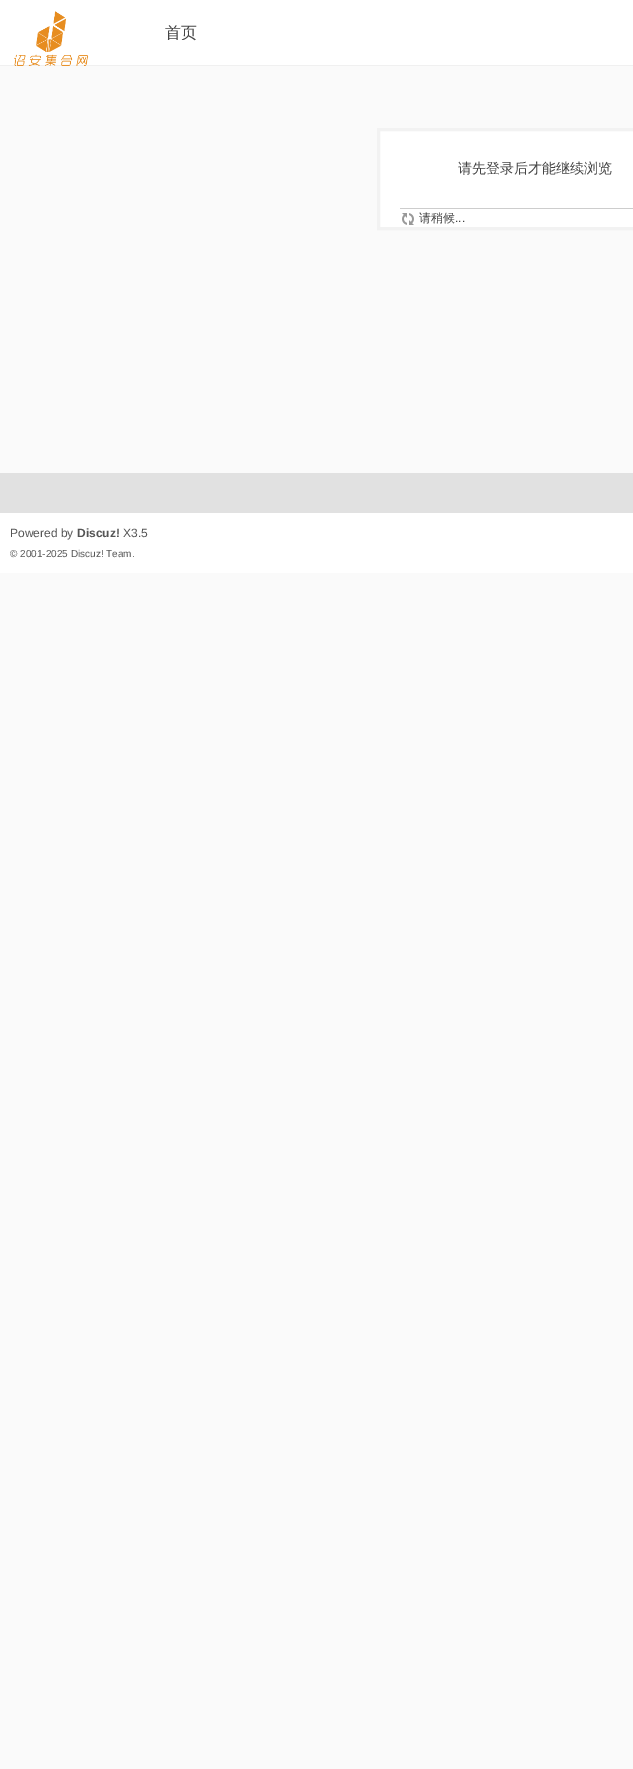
%!PS-Adobe-3.0
%%BoundingBox: 0 0 633 1769
%%LanguageLevel: 3
%%Pages: 1
%%EndComments
%%BeginProlog
/drawimage { 5 dict begin { /h /w /y /x /name } { exch def } forall
  gsave x y translate w h scale
  w h 8 [w 0 0 h 0 0] name (r) file false 3 colorimage grestore end } def
%%EndProlog
%%BeginSetup
<< /PageSize [633 1769] >> setpagedevice
%%EndSetup
%%Page: 1 1
0 1769 translate 1 -1 scale
4 setmiterlimit
0.98 setgray
0 0 633 1769 rectfill
1 setgray
0 0 633 65 rectfill
0.941 setgray
0 65 633 1 rectfill
(images/1.raw) 14 11 75 55 drawimage
1 setgray
newpath 378.5 129.5 moveto 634.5 129.5 lineto 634.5 228.5 lineto 378.5 228.5 lineto closepath gsave fill grestore
0.949 setgray
3 setlinewidth
stroke
0.804 setgray
400 208 233 1 rectfill
(images/2.raw) 402 213 12 12 drawimage
0.882 setgray
0 473 633 40 rectfill
1 setgray
0 513 633 60 rectfill
/WenQuanYiZenHei-Medium [16 0 0 -16 0 0] selectfont
0.267 setgray
165 38 moveto (首页) show
/WenQuanYiZenHei-Medium [14 0 0 -14 0 0] selectfont
458 173 moveto (请先登录后才能继续浏览) show
/WenQuanYiZenHei-Medium [12 0 0 -12 0 0] selectfont
419 222 moveto (请稍候) show
/LiberationSans-Regular [12 0 0 -12 0 0] selectfont
455 222 moveto (...) show
0.333 setgray
10 537 moveto (Powered by) show
/LiberationSans-Bold [12 0 0 -12 0 0] selectfont
77 537 moveto (Discuz!) show
/LiberationSans-Regular [12 0 0 -12 0 0] selectfont
123 537 moveto (X3.5) show
/LiberationSans-Regular [10 0 0 -10 0 0] selectfont
10 557 moveto (© 2001-2025 Discuz! Team.) show
showpage
%%EOF
